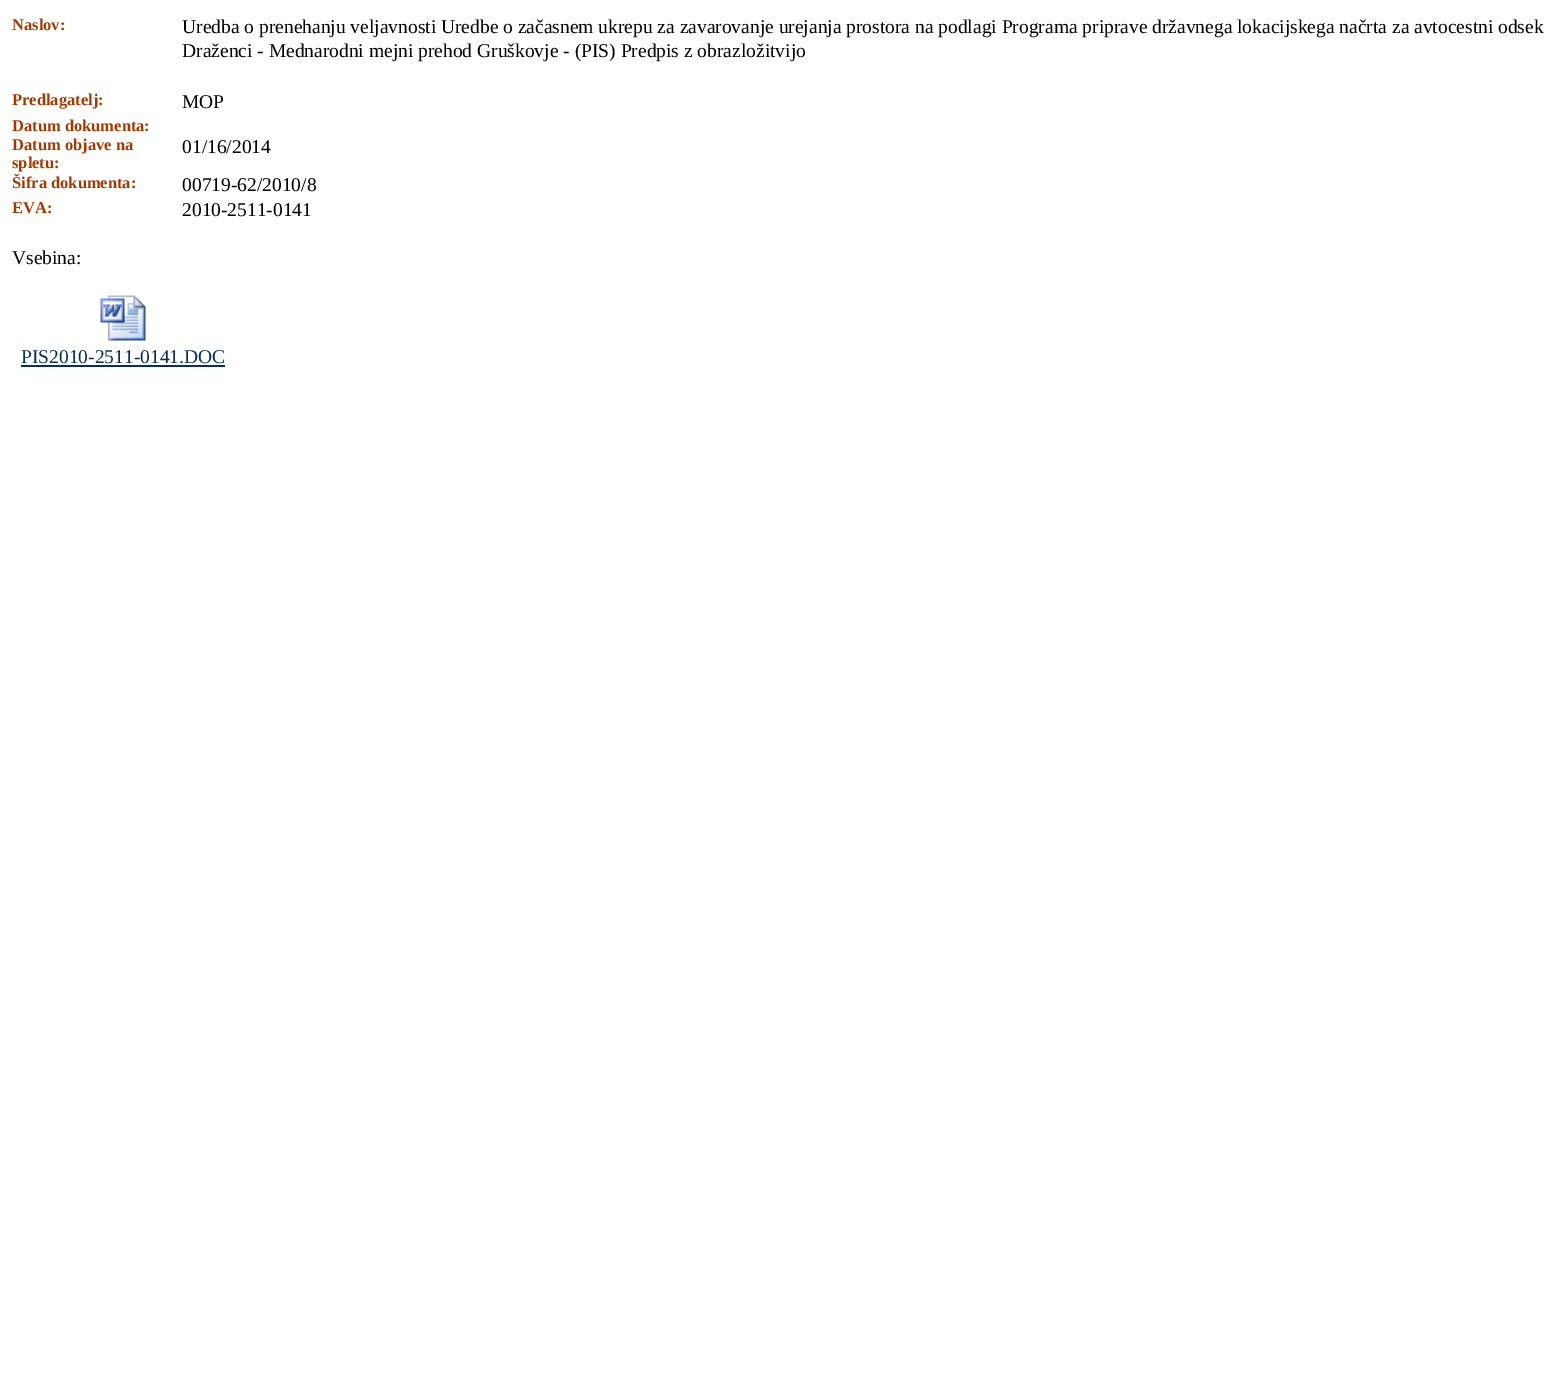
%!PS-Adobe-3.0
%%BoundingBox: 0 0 1560 1388
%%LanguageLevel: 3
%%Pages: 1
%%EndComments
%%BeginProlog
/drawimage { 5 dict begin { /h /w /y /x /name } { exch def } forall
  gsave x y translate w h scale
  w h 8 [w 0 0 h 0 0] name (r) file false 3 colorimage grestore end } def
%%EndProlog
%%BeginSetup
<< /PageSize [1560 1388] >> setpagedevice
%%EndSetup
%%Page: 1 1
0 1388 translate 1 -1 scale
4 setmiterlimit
1 setgray
0 0 1560 1388 rectfill
(images/1.raw) 100 295 46 46 drawimage
0.031 0.184 0.38 setrgbcolor
21 365 204 2 rectfill
/LiberationSerif-Bold [16.5 0 0 -16.5 0 0] selectfont
0.643 0.224 0 setrgbcolor
12 30 moveto (Naslov:) show
/LiberationSerif-Regular [19.5 0 0 -19.5 0 0] selectfont
0 setgray
182 33 moveto (Uredba o prenehanju veljavnosti Uredbe o začasnem ukrepu za zavarovanje urejanja prostora na podlagi Programa priprave državnega lokacijskega načrta za avtocestni odsek) show
182 57 moveto (Draženci - Mednarodni mejni prehod Gruškovje - \(PIS\) Predpis z obrazložitvijo) show
/LiberationSerif-Bold [16.5 0 0 -16.5 0 0] selectfont
0.643 0.224 0 setrgbcolor
12 105 moveto (Predlagatelj:) show
/LiberationSerif-Regular [19.5 0 0 -19.5 0 0] selectfont
0 setgray
182 108 moveto (MOP) show
/LiberationSerif-Bold [16.5 0 0 -16.5 0 0] selectfont
0.643 0.224 0 setrgbcolor
12 131 moveto (Datum dokumenta:) show
12 150 moveto (Datum objave na) show
12 168 moveto (spletu:) show
/LiberationSerif-Regular [19.5 0 0 -19.5 0 0] selectfont
0 setgray
182 153 moveto (01/16/2014) show
/LiberationSerif-Bold [16.5 0 0 -16.5 0 0] selectfont
0.643 0.224 0 setrgbcolor
12 188 moveto (Šifra dokumenta:) show
/LiberationSerif-Regular [19.5 0 0 -19.5 0 0] selectfont
0 setgray
182 191 moveto (00719-62/2010/8) show
/LiberationSerif-Bold [16.5 0 0 -16.5 0 0] selectfont
0.643 0.224 0 setrgbcolor
12 213 moveto (EVA:) show
/LiberationSerif-Regular [19.5 0 0 -19.5 0 0] selectfont
0 setgray
182 216 moveto (2010-2511-0141) show
12 264 moveto (Vsebina:) show
0.031 0.184 0.38 setrgbcolor
21 363 moveto (PIS2010-2511-0141.DOC) show
showpage
%%EOF
